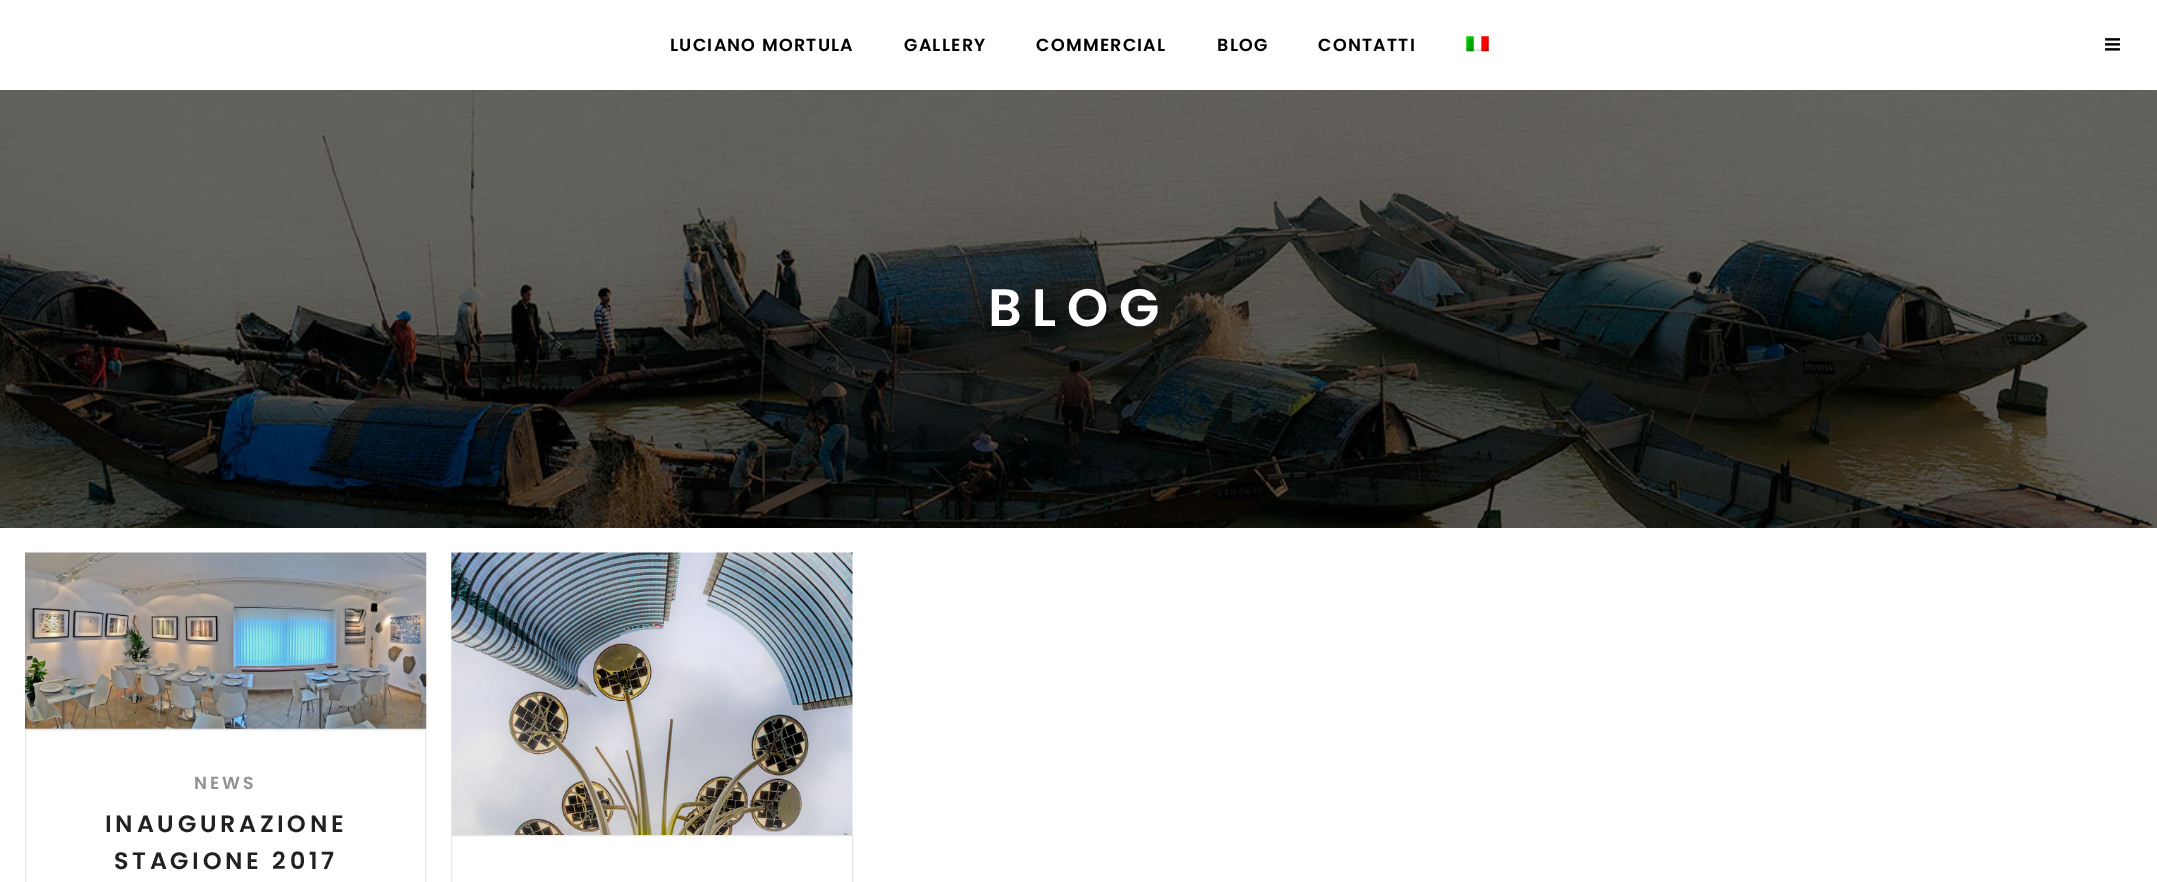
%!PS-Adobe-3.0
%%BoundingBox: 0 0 2157 882
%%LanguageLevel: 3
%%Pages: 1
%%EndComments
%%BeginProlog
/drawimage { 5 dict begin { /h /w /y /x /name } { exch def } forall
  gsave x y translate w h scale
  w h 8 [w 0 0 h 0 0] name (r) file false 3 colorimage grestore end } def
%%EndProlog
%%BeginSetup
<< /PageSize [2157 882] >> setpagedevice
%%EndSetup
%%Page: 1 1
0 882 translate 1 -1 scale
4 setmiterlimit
1 setgray
0 0 2157 882 rectfill
(images/1.raw) 1466 36 23 16 drawimage
(images/2.raw) 2105 38 15 13 drawimage
(images/3.raw) 0 90 2157 438 drawimage
(images/4.raw) 25 552 402 177 drawimage
0.906 setgray
25.5 729.5 400 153 rectstroke
(images/5.raw) 451 552 402 283 drawimage
451.5 835.5 401 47 rectstroke
/Poppins-SemiBold [17.5 0 0 -17.5 0 0] selectfont
0 setgray
670 51 moveto 1.25 0 (LUCIANO MORTULA) ashow
904 51 moveto 1.25 0 (GALLERY) ashow
1036 51 moveto 1.25 0 (COMMERCIAL) ashow
1217 51 moveto 1.25 0 (BLOG) ashow
1318 51 moveto 1.25 0 (CONTATTI) ashow
/Poppins-SemiBold [52.5 0 0 -52.5 0 0] selectfont
1 setgray
988 326 moveto 10.5 0 (BLOG) ashow
/Poppins-SemiBold [17.5 0 0 -17.5 0 0] selectfont
0.573 setgray
194 789 moveto 3 0 (NEWS) ashow
/Poppins-SemiBold [23.75 0 0 -23.75 0 0] selectfont
0.129 setgray
105 832 moveto 3.75 0 (INAUGURAZIONE) ashow
114 869 moveto 3.75 0 (STAGIONE 2017) ashow
showpage
%%EOF
